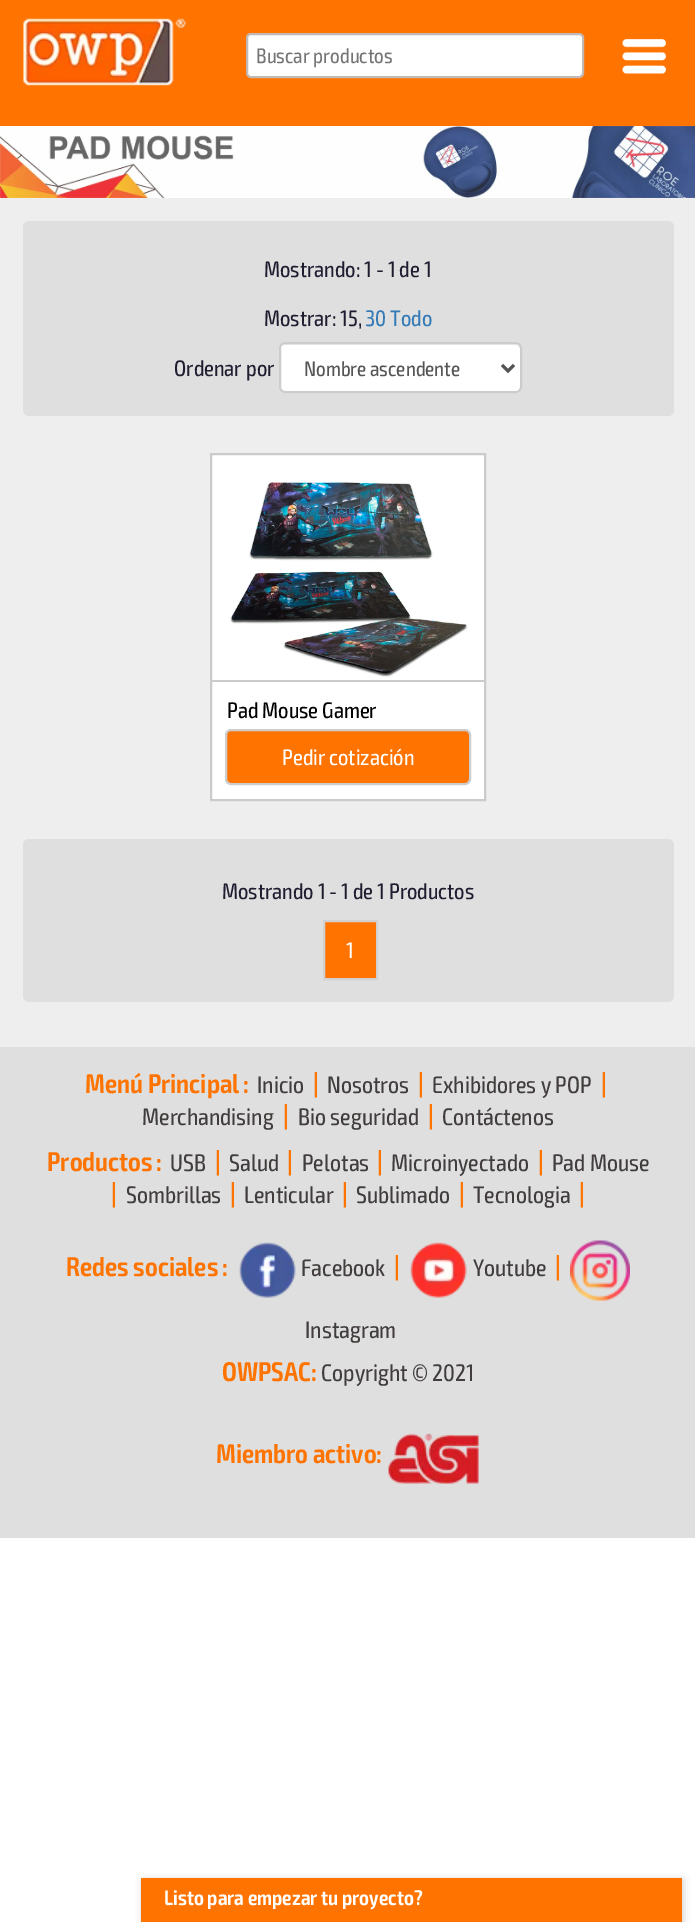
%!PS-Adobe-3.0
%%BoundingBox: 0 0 695 1922
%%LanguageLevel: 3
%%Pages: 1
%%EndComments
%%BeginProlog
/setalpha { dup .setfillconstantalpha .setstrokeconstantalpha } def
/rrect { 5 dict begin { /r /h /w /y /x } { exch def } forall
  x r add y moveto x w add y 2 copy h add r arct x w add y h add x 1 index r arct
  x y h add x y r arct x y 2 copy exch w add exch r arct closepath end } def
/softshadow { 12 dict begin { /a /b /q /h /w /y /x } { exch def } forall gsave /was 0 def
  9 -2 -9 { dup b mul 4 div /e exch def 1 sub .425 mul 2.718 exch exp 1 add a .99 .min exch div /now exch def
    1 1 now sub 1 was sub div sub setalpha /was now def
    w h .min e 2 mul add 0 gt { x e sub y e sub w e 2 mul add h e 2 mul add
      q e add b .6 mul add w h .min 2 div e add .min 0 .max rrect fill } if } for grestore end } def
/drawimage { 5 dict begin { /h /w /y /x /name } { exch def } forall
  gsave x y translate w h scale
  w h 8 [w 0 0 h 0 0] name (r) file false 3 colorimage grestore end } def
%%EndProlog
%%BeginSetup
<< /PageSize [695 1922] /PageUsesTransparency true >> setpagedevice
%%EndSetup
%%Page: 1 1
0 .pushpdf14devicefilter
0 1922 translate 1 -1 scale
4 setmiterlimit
1 setgray
0 0 695 1922 rectfill
1 0.451 0 setrgbcolor
0 0 695 126 rectfill
(images/1.raw) 23 18 164 68 drawimage
1 setgray
247 34 336 43 4 rrect gsave fill grestore
0.757 0.725 0.722 setrgbcolor
2 setlinewidth
stroke
(images/2.raw) 622 39 44 35 drawimage
(images/3.raw) 0 126 695 72 drawimage
0.933 setgray
0 198 695 849 rectfill
0.875 setgray
23 221 651 195 6 rrect fill
1 setgray
279 342 243 51 6 rrect fill
0.925 setgray
newpath 285 345 moveto 516 345 lineto 518 345 520 347 520 350 curveto 520 388 lineto 519 391 lineto 520 390 521 388 521 387 curveto 521 349 lineto 521 346 519 344 516 344 curveto 286 344 lineto 284 344 283 345 282 346 curveto closepath fill
0.8 setgray
280 343 241 49 5 rrect stroke
0.333 setgray
3 setlinewidth
newpath 502 365 moveto 508 371 lineto 514 365 lineto stroke
1 setgray
newpath 211 454 moveto 485 454 lineto 485 800 lineto 211 800 lineto closepath gsave fill grestore
0.796 setgray
2 setlinewidth
stroke
(images/4.raw) 230 482 238 195 drawimage
212 680 273 2 rectfill
1 0.451 0 setrgbcolor
226 730 244 54 5 rrect gsave fill grestore
0.804 setgray
stroke
0.875 setgray
23 839 651 163 6 rrect fill
1 0.451 0 setrgbcolor
newpath 324 921 moveto 377 921 lineto 377 979 lineto 324 979 lineto closepath gsave fill grestore
0.82 setgray
stroke
0.875 setgray
0 1047 695 491 rectfill
(images/5.raw) 238 1242 58 56 drawimage
(images/6.raw) 410 1242 57 56 drawimage
(images/7.raw) 570 1240 60 61 drawimage
(images/8.raw) 388 1433 91 51 drawimage
0 setgray
143 1880 540 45 0 4 0.2 softshadow
1 0.451 0 setrgbcolor
141 1878 541 44 rectfill
/Exo2-Regular [21 0 0 -21 0 0] selectfont
0.459 setgray
256 63 moveto (Buscar productos) show
/Exo2-Regular [22.5 0 0 -22.5 0 0] selectfont
0.125 0.114 0.188 setrgbcolor
264 277 moveto (Mostrando: 1 - 1 de 1) show
264 326 moveto (Mostrar: 15,) show
0.2 0.478 0.718 setrgbcolor
365 326 moveto (30 Todo) show
0.125 0.114 0.188 setrgbcolor
174 376 moveto (Ordenar por) show
/Exo2-Regular [21 0 0 -21 0 0] selectfont
0.333 setgray
304 376 moveto (Nombre ascendente) show
/Exo2-Regular [22.5 0 0 -22.5 0 0] selectfont
0 setgray
227 718 moveto (Pad Mouse Gamer) show
1 setgray
282 765 moveto (Pedir cotización) show
0.125 0.114 0.188 setrgbcolor
222 899 moveto (Mostrando 1 - 1 de 1 Productos) show
1 setgray
346 958 moveto (1) show
/Exo2-SemiBold [27 0 0 -27 0 0] selectfont
1 0.451 0 setrgbcolor
85 1093 moveto (Menú Principal) show
243 1093 moveto (:) show
/Exo2-Regular [24 0 0 -24 0 0] selectfont
0.259 0.239 0.239 setrgbcolor
257 1093 moveto (Inicio) show
/Exo2-SemiBold [27 0 0 -27 0 0] selectfont
1 0.451 0 setrgbcolor
313 1093 moveto (|) show
/Exo2-Regular [24 0 0 -24 0 0] selectfont
0.259 0.239 0.239 setrgbcolor
327 1093 moveto (Nosotros) show
/Exo2-SemiBold [27 0 0 -27 0 0] selectfont
1 0.451 0 setrgbcolor
418 1093 moveto (|) show
/Exo2-Regular [24 0 0 -24 0 0] selectfont
0.259 0.239 0.239 setrgbcolor
432 1093 moveto (Exhibidores y POP) show
/Exo2-SemiBold [27 0 0 -27 0 0] selectfont
1 0.451 0 setrgbcolor
601 1093 moveto (|) show
/Exo2-Regular [24 0 0 -24 0 0] selectfont
0.259 0.239 0.239 setrgbcolor
142 1125 moveto (Merchandising) show
/Exo2-SemiBold [27 0 0 -27 0 0] selectfont
1 0.451 0 setrgbcolor
283 1125 moveto (|) show
/Exo2-Regular [24 0 0 -24 0 0] selectfont
0.259 0.239 0.239 setrgbcolor
298 1125 moveto (Bio seguridad) show
/Exo2-SemiBold [27 0 0 -27 0 0] selectfont
1 0.451 0 setrgbcolor
428 1125 moveto (|) show
/Exo2-Regular [24 0 0 -24 0 0] selectfont
0.259 0.239 0.239 setrgbcolor
442 1125 moveto (Contáctenos) show
/Exo2-SemiBold [27 0 0 -27 0 0] selectfont
1 0.451 0 setrgbcolor
47 1171 moveto (Productos) show
156 1171 moveto (:) show
/Exo2-Regular [24 0 0 -24 0 0] selectfont
0.259 0.239 0.239 setrgbcolor
170 1171 moveto (USB) show
/Exo2-SemiBold [27 0 0 -27 0 0] selectfont
1 0.451 0 setrgbcolor
215 1171 moveto (|) show
/Exo2-Regular [24 0 0 -24 0 0] selectfont
0.259 0.239 0.239 setrgbcolor
229 1171 moveto (Salud) show
/Exo2-SemiBold [27 0 0 -27 0 0] selectfont
1 0.451 0 setrgbcolor
287 1171 moveto (|) show
/Exo2-Regular [24 0 0 -24 0 0] selectfont
0.259 0.239 0.239 setrgbcolor
302 1171 moveto (Pelotas) show
/Exo2-SemiBold [27 0 0 -27 0 0] selectfont
1 0.451 0 setrgbcolor
377 1171 moveto (|) show
/Exo2-Regular [24 0 0 -24 0 0] selectfont
0.259 0.239 0.239 setrgbcolor
391 1171 moveto (Microinyectado) show
/Exo2-SemiBold [27 0 0 -27 0 0] selectfont
1 0.451 0 setrgbcolor
538 1171 moveto (|) show
/Exo2-Regular [24 0 0 -24 0 0] selectfont
0.259 0.239 0.239 setrgbcolor
552 1171 moveto (Pad Mouse) show
/Exo2-SemiBold [27 0 0 -27 0 0] selectfont
1 0.451 0 setrgbcolor
111 1203 moveto (|) show
/Exo2-Regular [24 0 0 -24 0 0] selectfont
0.259 0.239 0.239 setrgbcolor
126 1203 moveto (Sombrillas) show
/Exo2-SemiBold [27 0 0 -27 0 0] selectfont
1 0.451 0 setrgbcolor
230 1203 moveto (|) show
/Exo2-Regular [24 0 0 -24 0 0] selectfont
0.259 0.239 0.239 setrgbcolor
244 1203 moveto (Lenticular) show
/Exo2-SemiBold [27 0 0 -27 0 0] selectfont
1 0.451 0 setrgbcolor
342 1203 moveto (|) show
/Exo2-Regular [24 0 0 -24 0 0] selectfont
0.259 0.239 0.239 setrgbcolor
356 1203 moveto (Sublimado) show
/Exo2-SemiBold [27 0 0 -27 0 0] selectfont
1 0.451 0 setrgbcolor
459 1203 moveto (|) show
/Exo2-Regular [24 0 0 -24 0 0] selectfont
0.259 0.239 0.239 setrgbcolor
473 1203 moveto (Tecnologia) show
/Exo2-SemiBold [27 0 0 -27 0 0] selectfont
1 0.451 0 setrgbcolor
579 1203 moveto (|) show
66 1276 moveto (Redes sociales) show
222 1276 moveto (:) show
/Exo2-Regular [24 0 0 -24 0 0] selectfont
0.259 0.239 0.239 setrgbcolor
301 1276 moveto (Facebook) show
/Exo2-SemiBold [27 0 0 -27 0 0] selectfont
1 0.451 0 setrgbcolor
394 1276 moveto (|) show
/Exo2-Regular [24 0 0 -24 0 0] selectfont
0.259 0.239 0.239 setrgbcolor
473 1276 moveto (Youtube) show
/Exo2-SemiBold [27 0 0 -27 0 0] selectfont
1 0.451 0 setrgbcolor
555 1276 moveto (|) show
/Exo2-Regular [24 0 0 -24 0 0] selectfont
0.259 0.239 0.239 setrgbcolor
305 1338 moveto (Instagram) show
/Exo2-SemiBold [27 0 0 -27 0 0] selectfont
1 0.451 0 setrgbcolor
222 1381 moveto (OWPSAC:) show
/Exo2-Regular [24 0 0 -24 0 0] selectfont
0.259 0.239 0.239 setrgbcolor
321 1381 moveto (Copyright © 2021) show
/Exo2-SemiBold [27 0 0 -27 0 0] selectfont
1 0.451 0 setrgbcolor
216 1463 moveto (Miembro activo:) show
/Exo2-SemiBold [21 0 0 -21 0 0] selectfont
1 setgray
164 1905 moveto (Listo para empezar tu proyecto?) show
.poppdf14devicefilter showpage
%%EOF
